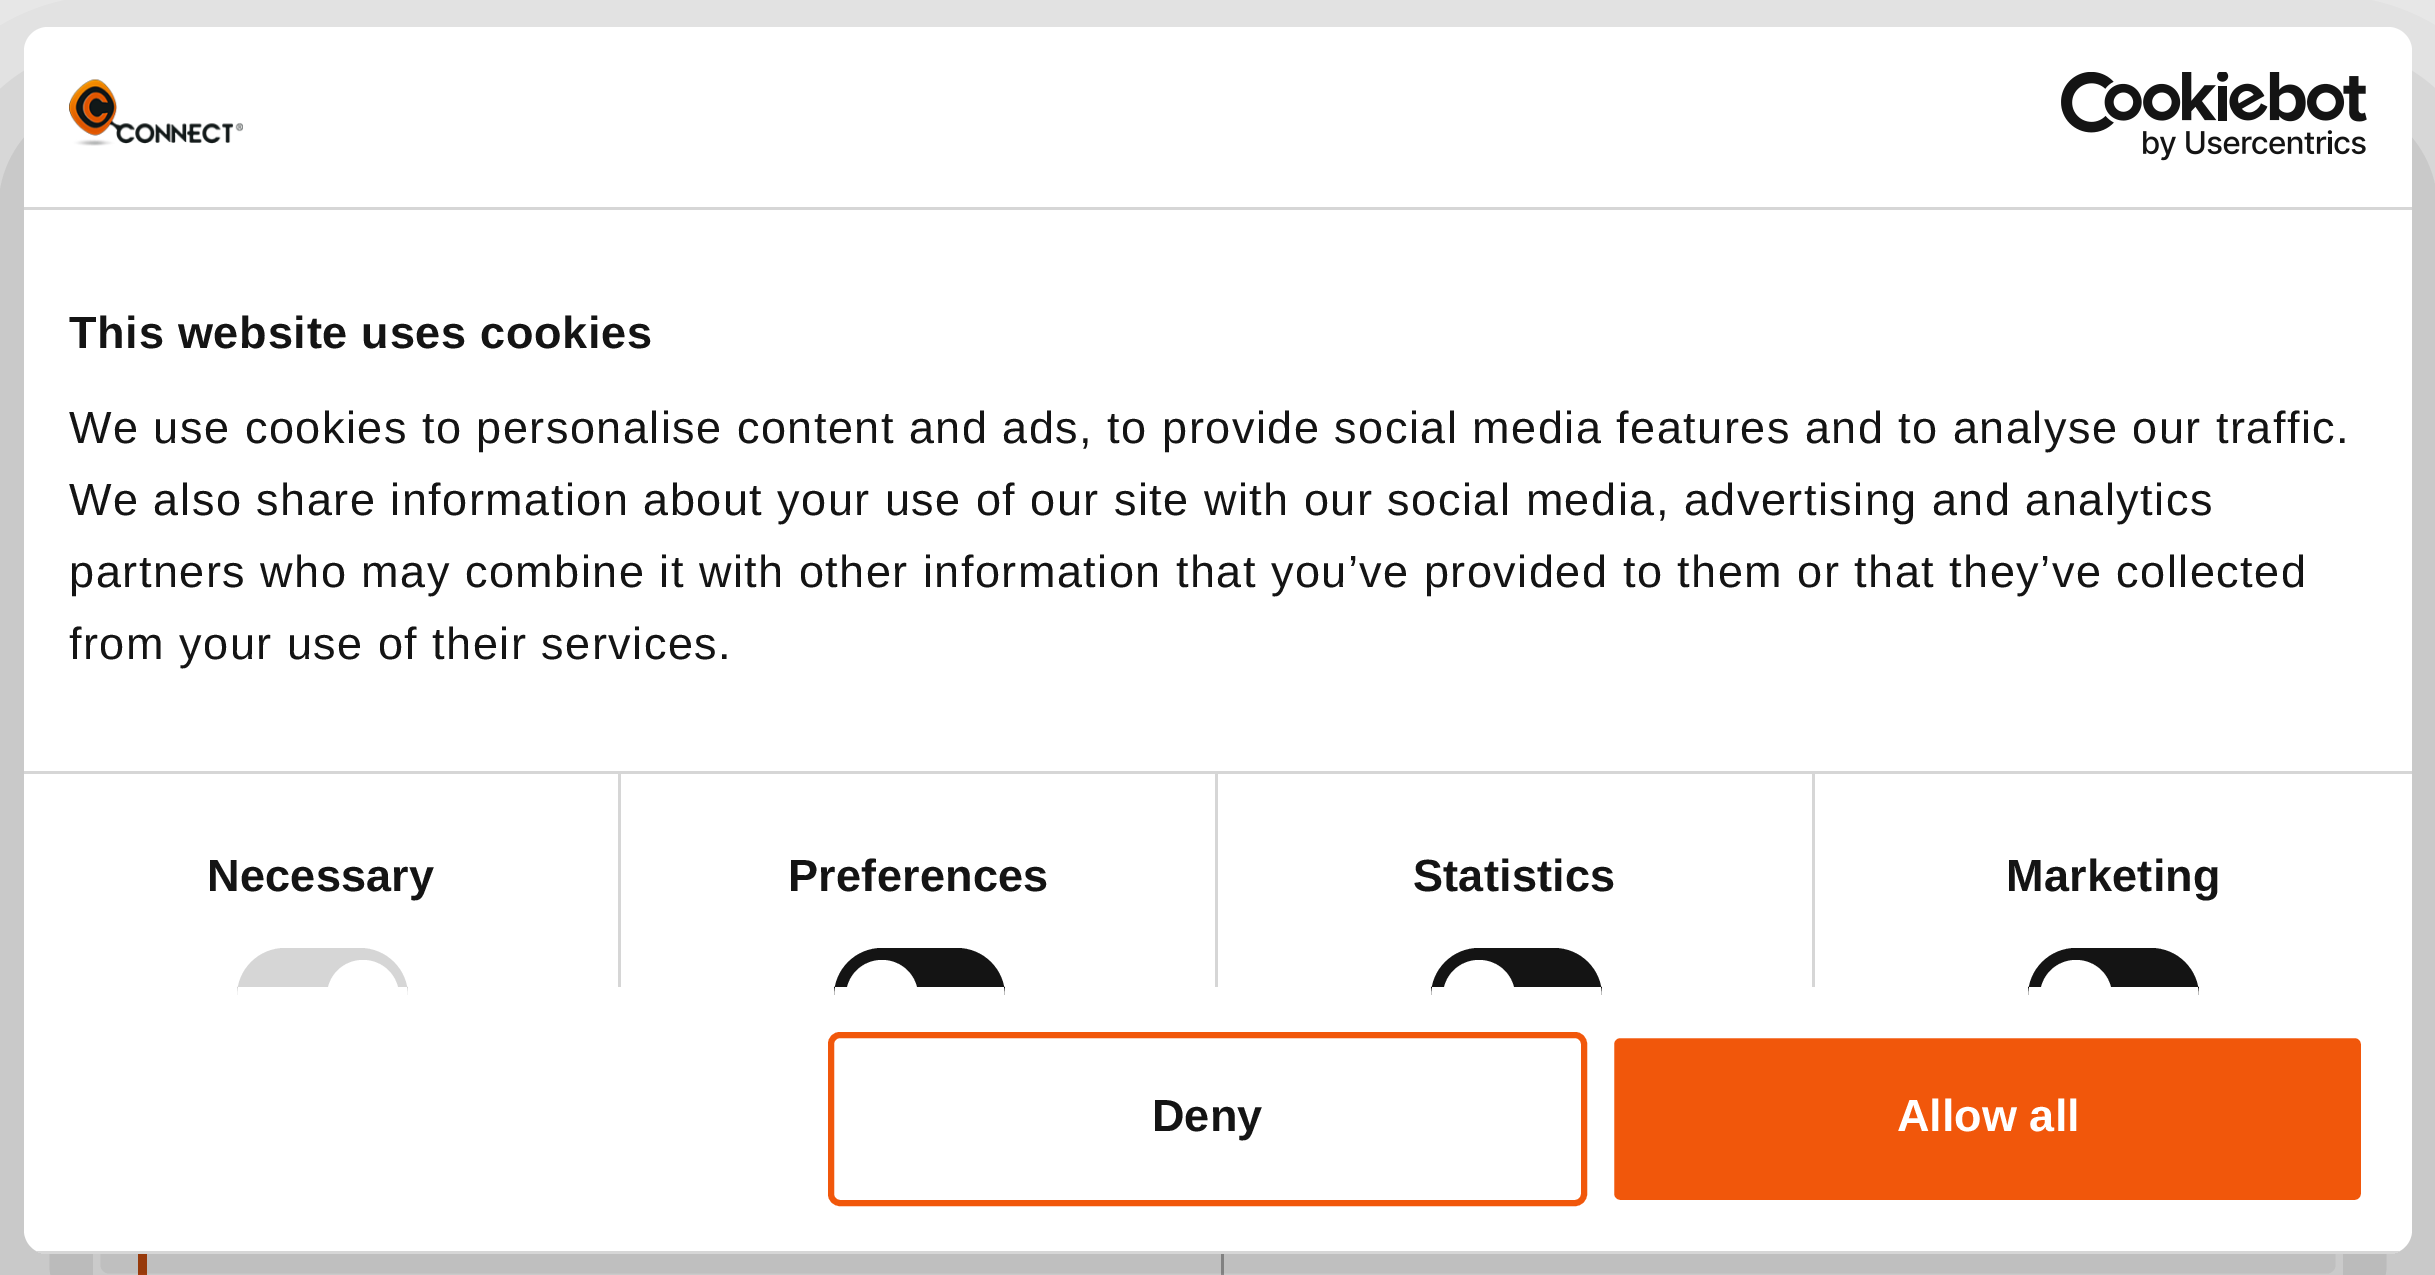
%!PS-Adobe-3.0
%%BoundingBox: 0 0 2435 1275
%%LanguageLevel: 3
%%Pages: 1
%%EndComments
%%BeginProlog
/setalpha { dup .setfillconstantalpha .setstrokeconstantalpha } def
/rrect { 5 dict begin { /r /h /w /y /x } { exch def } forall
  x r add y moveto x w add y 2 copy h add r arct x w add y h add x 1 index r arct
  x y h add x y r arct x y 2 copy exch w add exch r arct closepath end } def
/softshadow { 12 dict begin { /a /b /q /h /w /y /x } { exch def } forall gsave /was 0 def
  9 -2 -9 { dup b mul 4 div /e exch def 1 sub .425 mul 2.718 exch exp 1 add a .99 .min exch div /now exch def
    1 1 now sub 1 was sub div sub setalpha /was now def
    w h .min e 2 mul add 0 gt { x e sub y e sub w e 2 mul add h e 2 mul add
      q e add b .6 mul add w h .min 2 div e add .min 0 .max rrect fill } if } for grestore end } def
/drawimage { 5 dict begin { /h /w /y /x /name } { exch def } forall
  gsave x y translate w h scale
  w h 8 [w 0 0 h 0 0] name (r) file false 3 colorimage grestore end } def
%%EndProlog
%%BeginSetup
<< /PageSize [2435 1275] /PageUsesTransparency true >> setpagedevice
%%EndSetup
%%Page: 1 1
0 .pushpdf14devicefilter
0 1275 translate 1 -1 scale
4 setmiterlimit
0.925 setgray
0 0 2435 1275 rectfill
1 setgray
93 1254 2250 21 rectfill
0.792 0.31 0.059 setrgbcolor
138 1254 9 21 rectfill
0.671 0.671 0.675 setrgbcolor
1221 1254 3 21 rectfill
0 setgray
24 123 2388 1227 24 102 0.3 softshadow
1 setgray
24 27 2388 1227 24 rrect fill
0.839 setgray
24 207 2388 3 rectfill
(images/1.raw) 69 79 174 67 drawimage
(images/2.raw) 2061 72 306 89 drawimage
24 771 2388 3 rectfill
618 774 3 213 rectfill
newpath 285 948 moveto 360 948 lineto 386.5 948 408 969.5 408 996 curveto 408 987 lineto 237 987 lineto 237 996 lineto 237 969.5 258.5 948 285 948 curveto closepath fill
1 setgray
newpath 363 960 moveto 383 960 399 976 399 996 curveto 399 987 lineto 327 987 lineto 327 996 lineto 327 976 343 960 363 960 curveto closepath fill
0.839 setgray
1215 774 3 213 rectfill
0.078 setgray
newpath 882 948 moveto 957 948 lineto 983.5 948 1005 969.5 1005 996 curveto 1005 987 lineto 834 987 lineto 834 996 lineto 834 969.5 855.5 948 882 948 curveto closepath fill
1 setgray
newpath 882 960 moveto 902 960 918 976 918 996 curveto 918 987 lineto 846 987 lineto 846 996 lineto 846 976 862 960 882 960 curveto closepath fill
0.839 setgray
1812 774 3 213 rectfill
0.078 setgray
newpath 1479 948 moveto 1554 948 lineto 1580.5 948 1602 969.5 1602 996 curveto 1602 987 lineto 1431 987 lineto 1431 996 lineto 1431 969.5 1452.5 948 1479 948 curveto closepath fill
1 setgray
newpath 1479 960 moveto 1499 960 1515 976 1515 996 curveto 1515 987 lineto 1443 987 lineto 1443 996 lineto 1443 976 1459 960 1479 960 curveto closepath fill
0.078 setgray
newpath 2076 948 moveto 2151 948 lineto 2177.5 948 2199 969.5 2199 996 curveto 2199 987 lineto 2028 987 lineto 2028 996 lineto 2028 969.5 2049.5 948 2076 948 curveto closepath fill
1 setgray
newpath 2076 960 moveto 2096 960 2112 976 2112 996 curveto 2112 987 lineto 2040 987 lineto 2040 996 lineto 2040 976 2056 960 2076 960 curveto closepath fill
gsave
24 27 2388 1227 24 rrect clip newpath
0.839 setgray
36 1251 2364 3 rectfill
grestore
0.945 0.341 0.043 setrgbcolor
6 setlinewidth
831 1035 753 168 9 rrect stroke
1611 1035 753 168 9 rrect gsave fill grestore
1 setgray
stroke
/LiberationSans-Bold [45 0 0 -45 0 0] selectfont
0.078 setgray
69 348 moveto 0.75 0 (This website uses cookies) ashow
/LiberationSans-Regular [45 0 0 -45 0 0] selectfont
69 443 moveto 1.5 0 (We use cookies to personalise content and ads, to provide social media features and to analyse our traffic.) ashow
69 515 moveto 1.5 0 (We also share information about your use of our site with our social media, advertising and analytics) ashow
69 587 moveto 1.5 0 (partners who may combine it with other information that you’ve provided to them or that they’ve collected) ashow
69 659 moveto 1.5 0 (from your use of their services.) ashow
/LiberationSans-Bold [45 0 0 -45 0 0] selectfont
207 891 moveto 0.25 0 (Necessary) ashow
788 891 moveto 0.25 0 (Preferences) ashow
1413 891 moveto 0.25 0 (Statistics) ashow
2006 891 moveto 0.25 0 (Marketing) ashow
1152 1131 moveto (Deny) show
1 setgray
1897 1131 moveto (Allow all) show
.poppdf14devicefilter showpage
%%EOF
